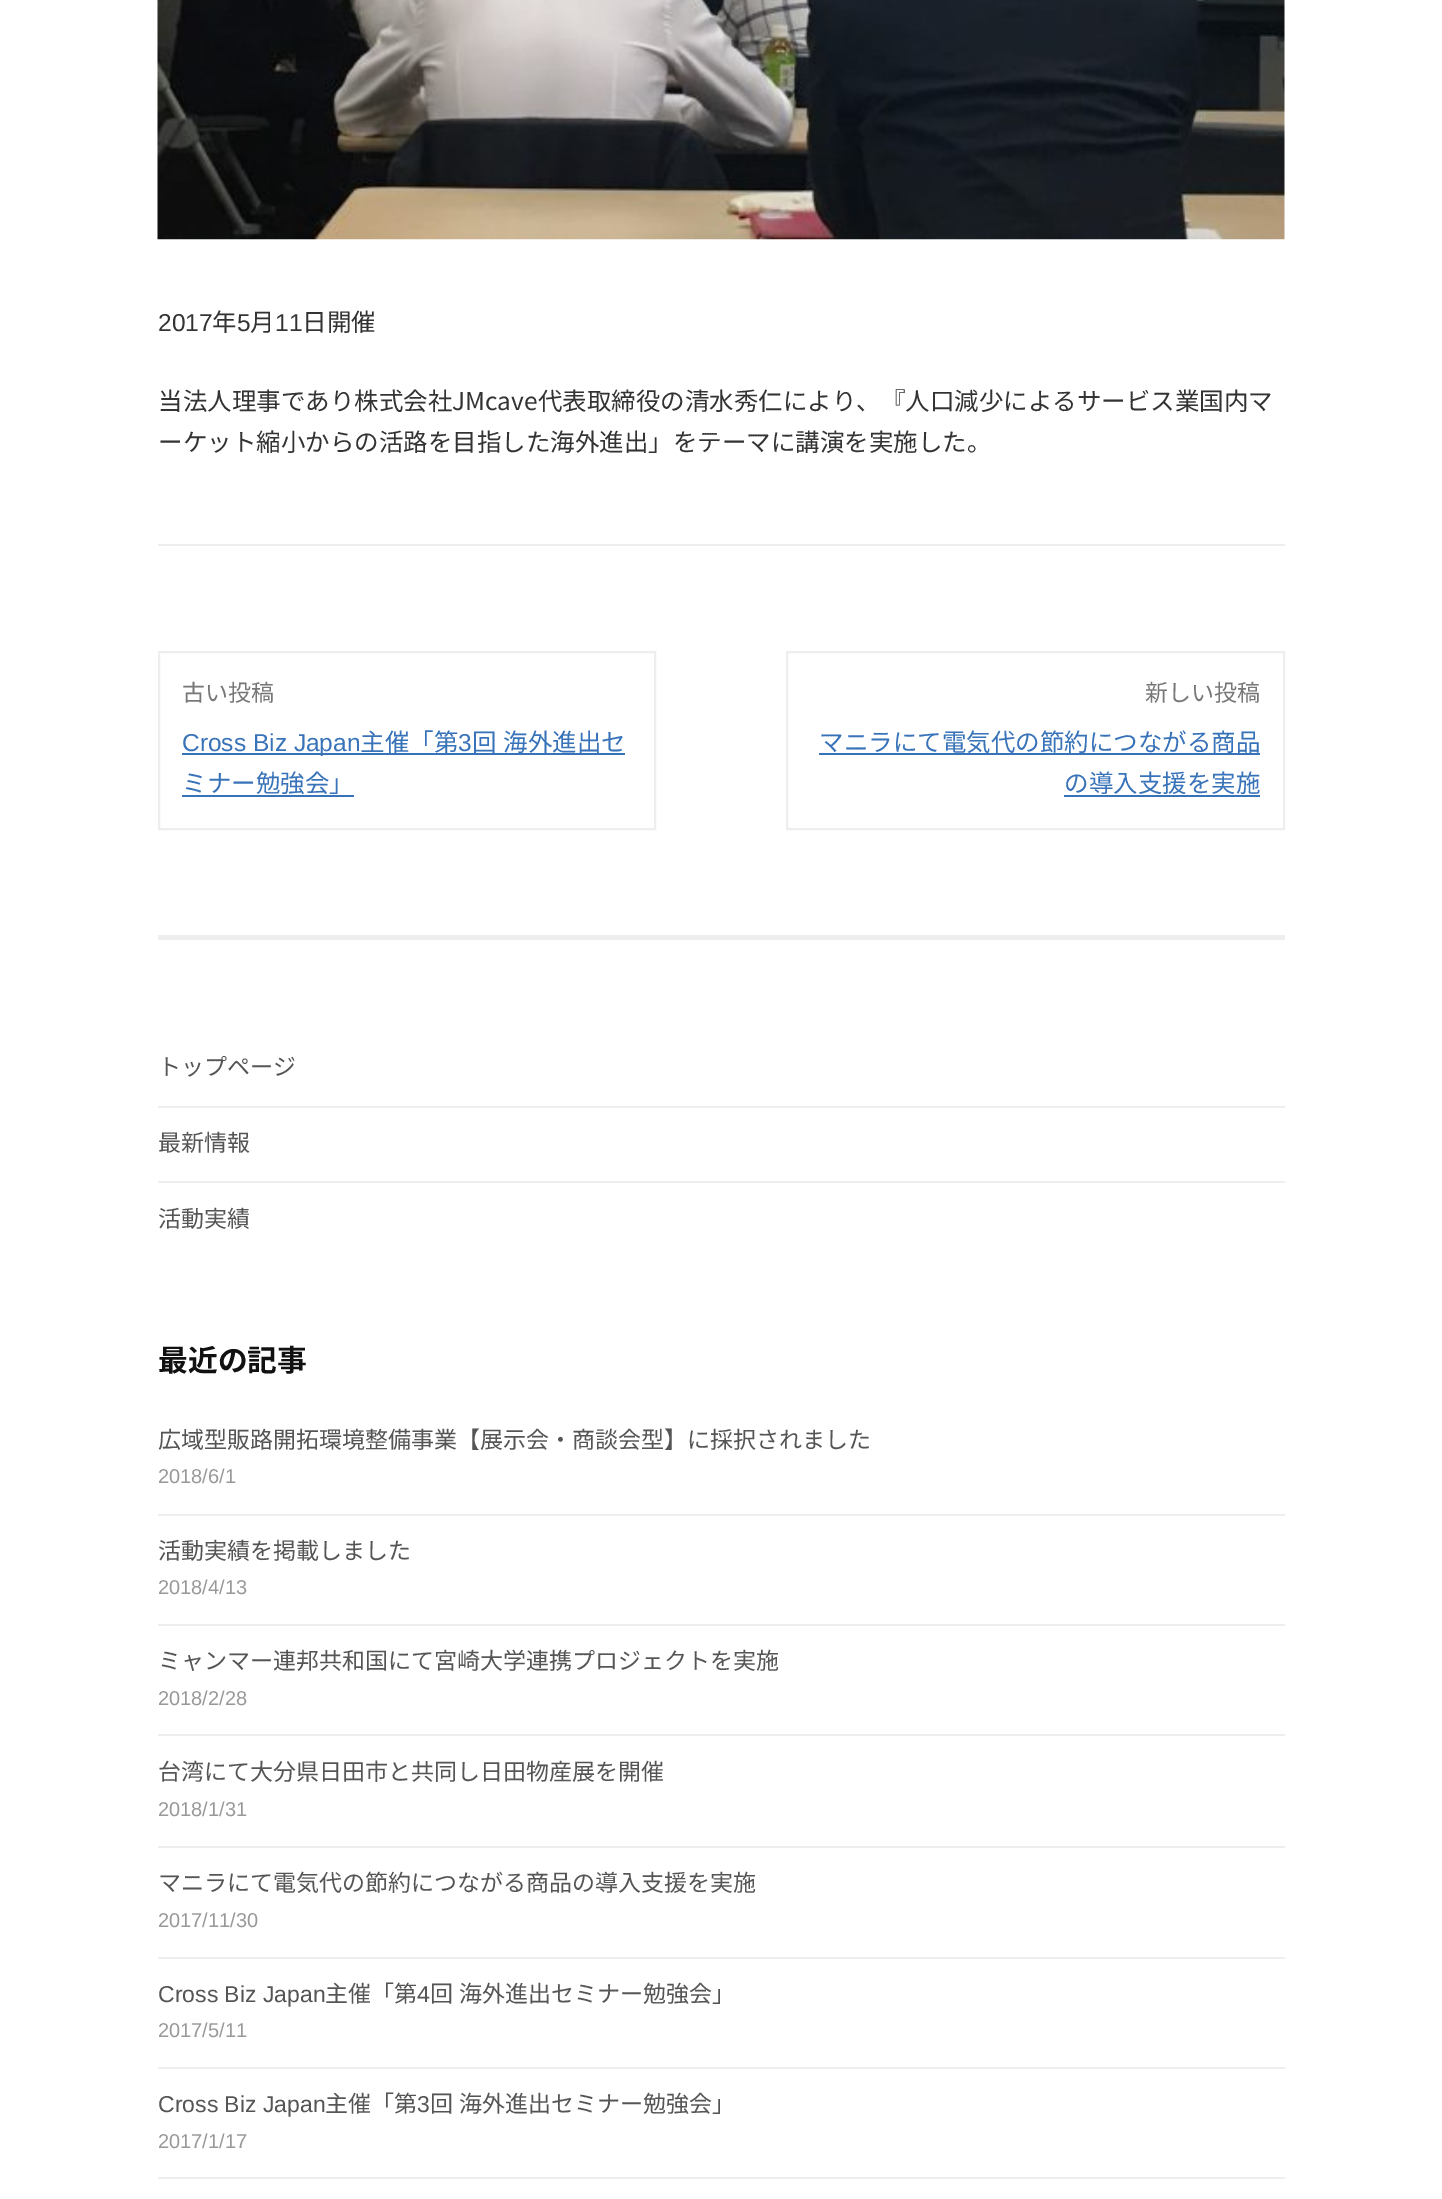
%!PS-Adobe-3.0
%%BoundingBox: 0 0 1442 2199
%%LanguageLevel: 3
%%Pages: 1
%%EndComments
%%BeginProlog
/drawimage { 5 dict begin { /h /w /y /x /name } { exch def } forall
  gsave x y translate w h scale
  w h 8 [w 0 0 h 0 0] name (r) file false 3 colorimage grestore end } def
%%EndProlog
%%BeginSetup
<< /PageSize [1442 2199] >> setpagedevice
%%EndSetup
%%Page: 1 1
0 2199 translate 1 -1 scale
4 setmiterlimit
1 setgray
0 0 1442 2199 rectfill
0.933 setgray
158 544 1127 2 rectfill
(images/1.raw) 157 0 1128 240 drawimage
2 setlinewidth
159 652 496 177 rectstroke
0.22 0.447 0.722 setrgbcolor
182 753 443 2 rectfill
182 795 172 2 rectfill
0.933 setgray
787 652 497 177 rectstroke
0.22 0.447 0.722 setrgbcolor
819 753 441 2 rectfill
1064 795 196 2 rectfill
0.933 setgray
158 935 1127 5 rectfill
158 1106 1127 2 rectfill
158 1181 1127 2 rectfill
158 1514 1127 2 rectfill
158 1624 1127 2 rectfill
158 1734 1127 2 rectfill
158 1846 1127 2 rectfill
158 1957 1127 2 rectfill
158 2067 1127 2 rectfill
158 2177 1127 2 rectfill
/LiberationSans-Regular [24.5 0 0 -24.5 0 0] selectfont
0.2 setgray
158 331 moveto (2017) show
/NotoSansJP-Regular [24.5 0 0 -24.5 0 0] selectfont
212 331 moveto (年) show
/LiberationSans-Regular [24.5 0 0 -24.5 0 0] selectfont
237 331 moveto (5) show
/NotoSansJP-Regular [24.5 0 0 -24.5 0 0] selectfont
250 331 moveto (月) show
/LiberationSans-Regular [24.5 0 0 -24.5 0 0] selectfont
275 331 moveto (11) show
/NotoSansJP-Regular [24.5 0 0 -24.5 0 0] selectfont
302 331 moveto (日開催) show
158 410 moveto (当法人理事であり株式会社JMcave代表取締役の清水秀仁により、『人口減少によるサービス業国内マ) show
158 451 moveto (ーケット縮小からの活路を目指した海外進出」をテーマに講演を実施した。) show
/NotoSansJP-Regular [23 0 0 -23 0 0] selectfont
0.467 setgray
182 701 moveto (古い投稿) show
/LiberationSans-Regular [24.5 0 0 -24.5 0 0] selectfont
0.22 0.447 0.722 setrgbcolor
182 751 moveto (Cross Biz Japan) show
/NotoSansJP-Regular [24.5 0 0 -24.5 0 0] selectfont
360 751 moveto (主催「第) show
/LiberationSans-Regular [24.5 0 0 -24.5 0 0] selectfont
458 751 moveto (3) show
/NotoSansJP-Regular [24.5 0 0 -24.5 0 0] selectfont
472 751 moveto (回) show
503 751 moveto (海外進出セ) show
182 792 moveto (ミナー勉強会」) show
/NotoSansJP-Regular [23 0 0 -23 0 0] selectfont
0.467 setgray
1145 701 moveto (新しい投稿) show
/NotoSansJP-Regular [24.5 0 0 -24.5 0 0] selectfont
0.22 0.447 0.722 setrgbcolor
819 751 moveto (マニラにて電気代の節約につながる商品) show
1064 792 moveto (の導入支援を実施) show
/NotoSansJP-Regular [23 0 0 -23 0 0] selectfont
0.333 setgray
158 1075 moveto (トップページ) show
158 1151 moveto (最新情報) show
158 1227 moveto (活動実績) show
/NotoSansJP-Bold [29.75 0 0 -29.75 0 0] selectfont
0.067 setgray
158 1371 moveto (最近の記事) show
/NotoSansJP-Regular [23 0 0 -23 0 0] selectfont
0.333 setgray
158 1448 moveto (広域型販路開拓環境整備事業【展示会・商談会型】に採択されました) show
/LiberationSans-Regular [20 0 0 -20 0 0] selectfont
0.6 setgray
158 1483 moveto (2018/6/1) show
/NotoSansJP-Regular [23 0 0 -23 0 0] selectfont
0.333 setgray
158 1559 moveto (活動実績を掲載しました) show
/LiberationSans-Regular [20 0 0 -20 0 0] selectfont
0.6 setgray
158 1594 moveto (2018/4/13) show
/NotoSansJP-Regular [23 0 0 -23 0 0] selectfont
0.333 setgray
158 1669 moveto (ミャンマー連邦共和国にて宮崎大学連携プロジェクトを実施) show
/LiberationSans-Regular [20 0 0 -20 0 0] selectfont
0.6 setgray
158 1705 moveto (2018/2/28) show
/NotoSansJP-Regular [23 0 0 -23 0 0] selectfont
0.333 setgray
158 1780 moveto (台湾にて大分県日田市と共同し日田物産展を開催) show
/LiberationSans-Regular [20 0 0 -20 0 0] selectfont
0.6 setgray
158 1816 moveto (2018/1/31) show
/NotoSansJP-Regular [23 0 0 -23 0 0] selectfont
0.333 setgray
158 1891 moveto (マニラにて電気代の節約につながる商品の導入支援を実施) show
/LiberationSans-Regular [20 0 0 -20 0 0] selectfont
0.6 setgray
158 1927 moveto (2017/11/30) show
/LiberationSans-Regular [23 0 0 -23 0 0] selectfont
0.333 setgray
158 2002 moveto (Cross Biz Japan) show
/NotoSansJP-Regular [23 0 0 -23 0 0] selectfont
325 2002 moveto (主催「第) show
/LiberationSans-Regular [23 0 0 -23 0 0] selectfont
417 2002 moveto (4) show
/NotoSansJP-Regular [23 0 0 -23 0 0] selectfont
430 2002 moveto (回) show
459 2002 moveto (海外進出セミナー勉強会」) show
/LiberationSans-Regular [20 0 0 -20 0 0] selectfont
0.6 setgray
158 2037 moveto (2017/5/11) show
/LiberationSans-Regular [23 0 0 -23 0 0] selectfont
0.333 setgray
158 2112 moveto (Cross Biz Japan) show
/NotoSansJP-Regular [23 0 0 -23 0 0] selectfont
325 2112 moveto (主催「第) show
/LiberationSans-Regular [23 0 0 -23 0 0] selectfont
417 2112 moveto (3) show
/NotoSansJP-Regular [23 0 0 -23 0 0] selectfont
430 2112 moveto (回) show
459 2112 moveto (海外進出セミナー勉強会」) show
/LiberationSans-Regular [20 0 0 -20 0 0] selectfont
0.6 setgray
158 2148 moveto (2017/1/17) show
showpage
%%EOF
